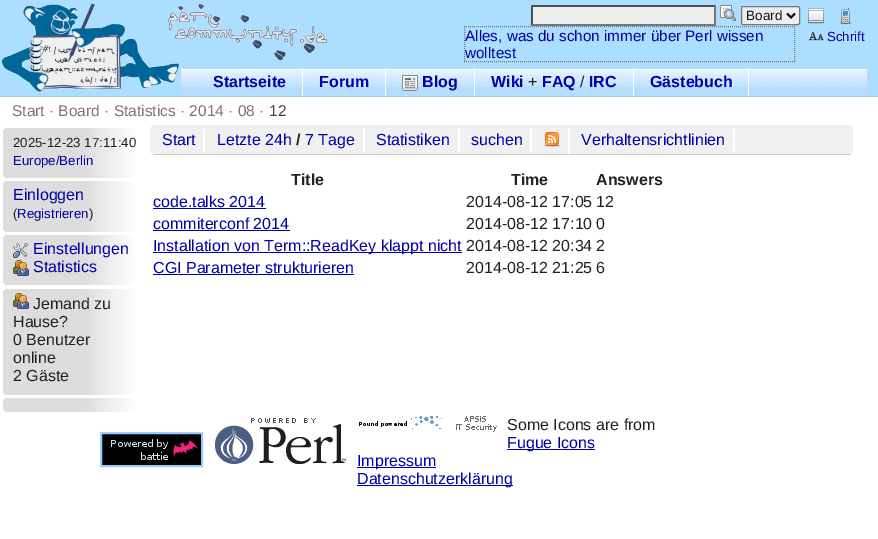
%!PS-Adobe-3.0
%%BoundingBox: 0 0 878 539
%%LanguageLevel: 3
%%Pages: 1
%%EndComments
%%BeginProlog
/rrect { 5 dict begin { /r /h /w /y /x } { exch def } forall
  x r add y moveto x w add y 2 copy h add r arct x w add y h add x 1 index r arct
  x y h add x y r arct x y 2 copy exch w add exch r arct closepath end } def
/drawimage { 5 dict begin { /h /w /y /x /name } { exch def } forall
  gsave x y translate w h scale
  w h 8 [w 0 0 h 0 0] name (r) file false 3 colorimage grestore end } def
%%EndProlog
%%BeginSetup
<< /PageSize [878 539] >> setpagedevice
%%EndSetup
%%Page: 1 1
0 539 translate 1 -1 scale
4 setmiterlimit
1 setgray
0 0 878 539 rectfill
0.671 0.871 1 setrgbcolor
0 0 878 96 rectfill
(images/1.raw) 2 3 325 89 drawimage
0.667 0.8 0.867 setrgbcolor
0 96 878 1 rectfill
0.933 setgray
531 5 185 21 rectfill
0.31 setgray
newpath 531 5 moveto 716 5 lineto 714 7 lineto 533 7 lineto closepath fill
0.463 setgray
newpath 716 5 moveto 716 26 lineto 714 24 lineto 714 7 lineto closepath fill
newpath 716 26 moveto 531 26 lineto 533 24 lineto 714 24 lineto closepath fill
0.31 setgray
newpath 531 26 moveto 531 5 lineto 533 7 lineto 533 24 lineto closepath fill
(images/2.raw) 720 5 16 16 drawimage
0.933 setgray
741.5 6.5 58 18 1.5 rrect gsave fill grestore
0.463 setgray
stroke
0.067 setgray
2 setlinewidth
newpath 787 13.5 moveto 791 17.5 lineto 795 13.5 lineto stroke
0.467 setgray
1 setlinewidth
[1 1] 0 setdash
newpath 464 26.5 moveto 795 26.5 lineto stroke
newpath 794.5 26 moveto 794.5 62 lineto stroke
newpath 464 61.5 moveto 795 61.5 lineto stroke
newpath 464.5 26 moveto 464.5 62 lineto stroke
(images/3.raw) 808 8 16 16 drawimage
(images/4.raw) 839 8 13 16 drawimage
(images/5.raw) 808 32 16 9 drawimage
(images/6.raw) 181 68 686 28 drawimage
0.8 0.8 1 setrgbcolor
867 68 1 28 rectfill
180 68 1 28 rectfill
1 setgray
302 68 1 28 rectfill
385 68 1 28 rectfill
474 68 1 28 rectfill
(images/7.raw) 402 75 16 16 drawimage
633 68 1 28 rectfill
748 68 1 28 rectfill
gsave 3 128 134 50 5 rrect clip newpath
<< /ShadingType 2 /ColorSpace /DeviceRGB /Coords [3 153 137 153] /Extend [true true] /Function << /FunctionType 3 /Domain [0 1] /Functions [<< /FunctionType 2 /Domain [0 1] /C0 [0.867 0.867 0.867] /C1 [0.867 0.867 0.867] /N 1 >> << /FunctionType 2 /Domain [0 1] /C0 [0.867 0.867 0.867] /C1 [1 1 1] /N 1 >>] /Bounds [0.6] /Encode [0 1 0 1] >> >> shfill grestore
gsave 3 181 134 51 5 rrect clip newpath
<< /ShadingType 2 /ColorSpace /DeviceRGB /Coords [3 207 137 207] /Extend [true true] /Function << /FunctionType 3 /Domain [0 1] /Functions [<< /FunctionType 2 /Domain [0 1] /C0 [0.867 0.867 0.867] /C1 [0.867 0.867 0.867] /N 1 >> << /FunctionType 2 /Domain [0 1] /C0 [0.867 0.867 0.867] /C1 [1 1 1] /N 1 >>] /Bounds [0.6] /Encode [0 1 0 1] >> >> shfill grestore
gsave 3 235 134 50 5 rrect clip newpath
<< /ShadingType 2 /ColorSpace /DeviceRGB /Coords [3 260 137 260] /Extend [true true] /Function << /FunctionType 3 /Domain [0 1] /Functions [<< /FunctionType 2 /Domain [0 1] /C0 [0.867 0.867 0.867] /C1 [0.867 0.867 0.867] /N 1 >> << /FunctionType 2 /Domain [0 1] /C0 [0.867 0.867 0.867] /C1 [1 1 1] /N 1 >>] /Bounds [0.6] /Encode [0 1 0 1] >> >> shfill grestore
(images/8.raw) 13 243 15 15 drawimage
(images/9.raw) 13 260 16 16 drawimage
gsave 3 289 134 106 5 rrect clip newpath
<< /ShadingType 2 /ColorSpace /DeviceRGB /Coords [3 342 137 342] /Extend [true true] /Function << /FunctionType 3 /Domain [0 1] /Functions [<< /FunctionType 2 /Domain [0 1] /C0 [0.867 0.867 0.867] /C1 [0.867 0.867 0.867] /N 1 >> << /FunctionType 2 /Domain [0 1] /C0 [0.867 0.867 0.867] /C1 [1 1 1] /N 1 >>] /Bounds [0.6] /Encode [0 1 0 1] >> >> shfill grestore
(images/9.raw) 13 293 16 16 drawimage
gsave 3 398 134 14 5 rrect clip newpath
<< /ShadingType 2 /ColorSpace /DeviceRGB /Coords [3 405 137 405] /Extend [true true] /Function << /FunctionType 3 /Domain [0 1] /Functions [<< /FunctionType 2 /Domain [0 1] /C0 [0.867 0.867 0.867] /C1 [0.867 0.867 0.867] /N 1 >> << /FunctionType 2 /Domain [0 1] /C0 [0.867 0.867 0.867] /C1 [1 1 1] /N 1 >>] /Bounds [0.6] /Encode [0 1 0 1] >> >> shfill grestore
0.941 setgray
150 125 703 30 5 rrect fill
0.8 setgray
153 154 698 1 rectfill
1 setgray
203 128 2 24 rectfill
363 128 2 24 rectfill
458 128 2 24 rectfill
530 128 2 24 rectfill
568 128 2 26 rectfill
(images/10.raw) 544 132 16 15 drawimage
733 128 2 24 rectfill
0 0 0.659 setrgbcolor
153 208 113 1 rectfill
153 230 137 1 rectfill
153 252 309 1 rectfill
153 274 201 1 rectfill
0 setgray
newpath 101 433 moveto 202 433 lineto 202 466 lineto 101 466 lineto closepath gsave fill grestore
0.6 0.8 1 setrgbcolor
2 setlinewidth
[] 0 setdash
stroke
(images/11.raw) 111 439 87 21 drawimage
(images/12.raw) 215 418 131 46 drawimage
(images/13.raw) 359 416 138 16 drawimage
0 0 0.659 setrgbcolor
507 449 88 1 rectfill
357 467 79 1 rectfill
357 485 156 1 rectfill
/LiberationSans-Regular [13.5 0 0 -13.5 0 0] selectfont
0.067 setgray
746 20 moveto (Board) show
/LiberationSans-Regular [15.25 0 0 -15.25 0 0] selectfont
0 0 0.659 setrgbcolor
465 41 moveto (Alles, was du schon immer über Perl wissen) show
465 58 moveto (wolltest) show
/LiberationSans-Regular [13.25 0 0 -13.25 0 0] selectfont
827 41 moveto (Schrift) show
/LiberationSans-Bold [16 0 0 -16 0 0] selectfont
213 87 moveto (Startseite) show
319 87 moveto (Forum) show
422 87 moveto (Blog) show
491 87 moveto (Wiki) show
/LiberationSans-Regular [16 0 0 -16 0 0] selectfont
0.133 setgray
528 87 moveto (+) show
/LiberationSans-Bold [16 0 0 -16 0 0] selectfont
0 0 0.659 setrgbcolor
542 87 moveto (FAQ) show
/LiberationSans-Regular [16 0 0 -16 0 0] selectfont
0.133 setgray
580 87 moveto (/) show
/LiberationSans-Bold [16 0 0 -16 0 0] selectfont
0 0 0.659 setrgbcolor
589 87 moveto (IRC) show
650 87 moveto (Gästebuch) show
/LiberationSans-Regular [15.5 0 0 -15.5 0 0] selectfont
0.467 setgray
12 116 moveto (Start · Board · Statistics · 2014 · 08 ·) show
0.267 setgray
269 116 moveto (12) show
/LiberationSans-Regular [13.25 0 0 -13.25 0 0] selectfont
0.133 setgray
13 147 moveto (2025-12-23 17:11:40) show
0 0 0.659 setrgbcolor
13 165 moveto (Europe/Berlin) show
/LiberationSans-Regular [16 0 0 -16 0 0] selectfont
13 200 moveto (Einloggen) show
/LiberationSans-Regular [13.25 0 0 -13.25 0 0] selectfont
0.133 setgray
13 218 moveto (\() show
0 0 0.659 setrgbcolor
17 218 moveto (Registrieren) show
0.133 setgray
89 218 moveto (\)) show
/LiberationSans-Regular [16 0 0 -16 0 0] selectfont
0 0 0.659 setrgbcolor
33 254 moveto (Einstellungen) show
33 272 moveto (Statistics) show
0.133 setgray
33 309 moveto (Jemand zu) show
13 327 moveto (Hause?) show
13 345 moveto (0 Benutzer) show
13 363 moveto (online) show
13 381 moveto (2 Gäste) show
0 0 0.659 setrgbcolor
162 145 moveto (Start) show
217 145 moveto (Letzte 24h) show
/LiberationSans-Bold [16 0 0 -16 0 0] selectfont
0.133 setgray
296 145 moveto (/) show
/LiberationSans-Regular [16 0 0 -16 0 0] selectfont
0 0 0.659 setrgbcolor
305 145 moveto (7 Tage) show
376 145 moveto (Statistiken) show
471 145 moveto (suchen) show
581 145 moveto (Verhaltensrichtlinien) show
/LiberationSans-Bold [16 0 0 -16 0 0] selectfont
0.133 setgray
291 185 moveto (Title) show
511 185 moveto (Time) show
596 185 moveto (Answers) show
/LiberationSans-Regular [16 0 0 -16 0 0] selectfont
0 0 0.659 setrgbcolor
153 207 moveto (code.talks 2014) show
0.133 setgray
466 207 moveto (2014-08-12 17:05) show
596 207 moveto (12) show
0 0 0.659 setrgbcolor
153 229 moveto (commiterconf 2014) show
0.133 setgray
466 229 moveto (2014-08-12 17:10) show
596 229 moveto (0) show
0 0 0.659 setrgbcolor
153 251 moveto (Installation von Term::ReadKey klappt nicht) show
0.133 setgray
466 251 moveto (2014-08-12 20:34) show
596 251 moveto (2) show
0 0 0.659 setrgbcolor
153 273 moveto (CGI Parameter strukturieren) show
0.133 setgray
466 273 moveto (2014-08-12 21:25) show
596 273 moveto (6) show
507 430 moveto (Some Icons are from) show
0 0 0.659 setrgbcolor
507 448 moveto (Fugue Icons) show
357 466 moveto (Impressum) show
357 484 moveto (Datenschutzerklärung) show
showpage
%%EOF
